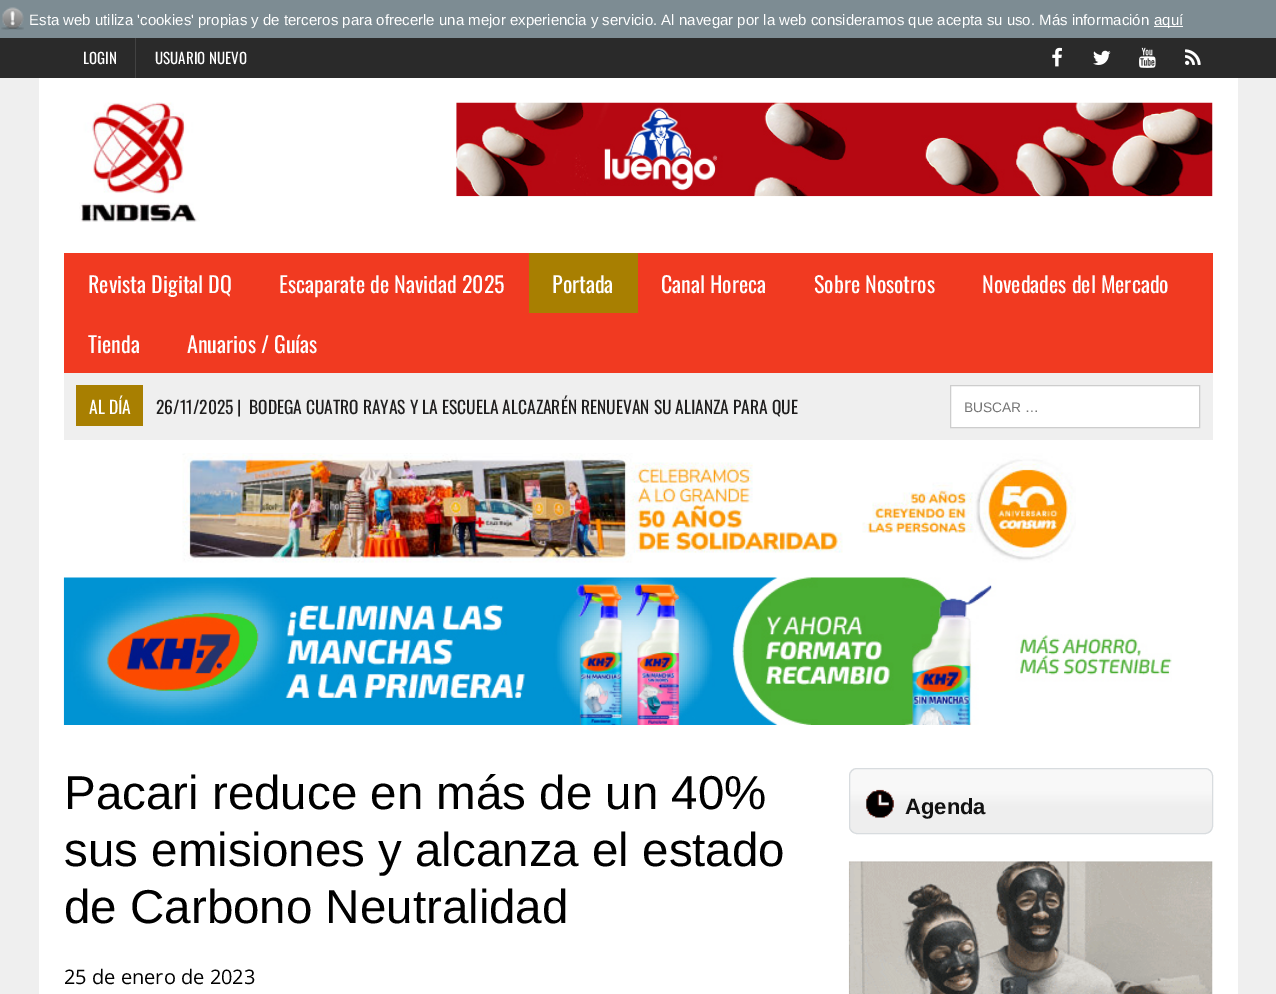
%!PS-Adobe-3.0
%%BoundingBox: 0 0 1276 994
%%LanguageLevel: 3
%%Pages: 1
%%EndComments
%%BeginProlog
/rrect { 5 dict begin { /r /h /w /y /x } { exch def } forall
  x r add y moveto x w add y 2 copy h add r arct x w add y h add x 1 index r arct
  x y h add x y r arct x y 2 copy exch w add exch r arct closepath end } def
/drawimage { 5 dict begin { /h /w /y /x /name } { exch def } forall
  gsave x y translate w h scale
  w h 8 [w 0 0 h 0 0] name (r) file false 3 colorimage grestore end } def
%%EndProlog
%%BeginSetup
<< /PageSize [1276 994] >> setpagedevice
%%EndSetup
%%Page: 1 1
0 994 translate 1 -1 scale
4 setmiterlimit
0.937 setgray
0 0 1276 994 rectfill
0.49 0.549 0.576 setrgbcolor
0 0 1276 38 rectfill
(images/1.raw) 1 7 23 23 drawimage
1 setgray
1154 26 29 1 rectfill
0.165 setgray
0 38 1276 40 rectfill
0.259 setgray
135 38 1 40 rectfill
(images/2.raw) 1052 47 10 20 drawimage
(images/3.raw) 1093 50 18 15 drawimage
(images/4.raw) 1139 47 17 21 drawimage
(images/5.raw) 1185 49 16 16 drawimage
1 setgray
39 78 1199 916 rectfill
(images/6.raw) 79 102 121 120 drawimage
(images/7.raw) 456 102 757 95 drawimage
0.945 0.227 0.129 setrgbcolor
64 253 1149 120 rectfill
0.659 0.498 0.004 setrgbcolor
529 253 109 60 rectfill
0.937 setgray
64 373 1149 67 rectfill
0.659 0.498 0.004 setrgbcolor
76 385 67 41 rectfill
1 setgray
newpath 950.5 385.5 moveto 1199.5 385.5 lineto 1199.5 427.5 lineto 950.5 427.5 lineto closepath gsave fill grestore
0.804 setgray
stroke
(images/8.raw) 182 453 894 110 drawimage
(images/9.raw) 63 577 1109 148 drawimage
(images/10.raw) 849 768 363 65 drawimage
0.847 0.863 0.875 setrgbcolor
849.5 768.5 363 65 7.5 rrect stroke
(images/11.raw) 866 789 28 29 drawimage
(images/12.raw) 848 861 365 133 drawimage
/LiberationSans-Regular [15 0 0 -15 0 0] selectfont
1 setgray
29 25 moveto (Esta web utiliza 'cookies' propias y de terceros para ofrecerle una mejor experiencia y servicio. Al navegar por la web consideramos que acepta su uso. Más información) show
1154 25 moveto (aquí) show
/Oswald-Regular [15 0 0 -15 0 0] selectfont
83 64 moveto (LOGIN) show
155 64 moveto (USUARIO NUEVO) show
/Oswald-Regular [22 0 0 -22 0 0] selectfont
88 293 moveto (Revista Digital DQ) show
279 293 moveto (Escaparate de Navidad 2025) show
552 293 moveto (Portada) show
661 293 moveto (Canal Horeca) show
814 293 moveto (Sobre Nosotros) show
982 293 moveto (Novedades del Mercado) show
88 353 moveto (Tienda) show
187 353 moveto (Anuarios / Guías) show
/Oswald-Regular [17.5 0 0 -17.5 0 0] selectfont
89 414 moveto (AL DÍA) show
0.122 0.118 0.118 setrgbcolor
156 414 moveto (26/11/2025 |) show
249 414 moveto (BODEGA CUATRO RAYAS Y LA ESCUELA ALCAZARÉN RENUEVAN SU ALIANZA PARA QUE) show
/LiberationSans-Regular [13.75 0 0 -13.75 0 0] selectfont
0.459 setgray
964 412 moveto (BUSCAR …) show
/LiberationSans-Regular [47.5 0 0 -47.5 0 0] selectfont
0 setgray
64 809 moveto (Pacari reduce en más de un 40%) show
64 866 moveto (sus emisiones y alcanza el estado) show
64 923 moveto (de Carbono Neutralidad) show
/OpenSans-Regular [20 0 0 -20 0 0] selectfont
64 984 moveto (25 de enero de 2023) show
/LiberationSans-Bold [22 0 0 -22 0 0] selectfont
0.067 setgray
905 814 moveto (Agenda) show
showpage
%%EOF
